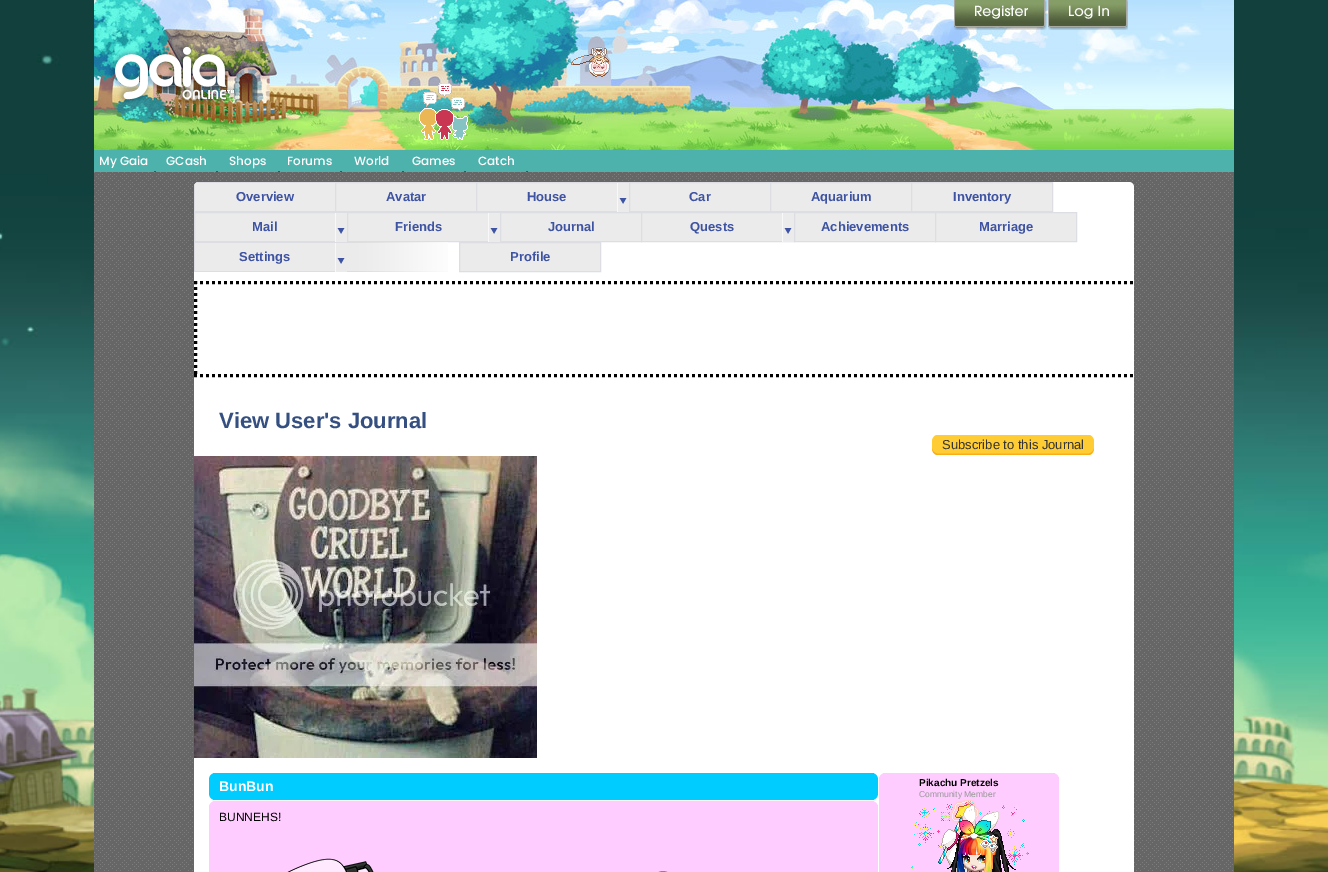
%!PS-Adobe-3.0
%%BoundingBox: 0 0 1328 872
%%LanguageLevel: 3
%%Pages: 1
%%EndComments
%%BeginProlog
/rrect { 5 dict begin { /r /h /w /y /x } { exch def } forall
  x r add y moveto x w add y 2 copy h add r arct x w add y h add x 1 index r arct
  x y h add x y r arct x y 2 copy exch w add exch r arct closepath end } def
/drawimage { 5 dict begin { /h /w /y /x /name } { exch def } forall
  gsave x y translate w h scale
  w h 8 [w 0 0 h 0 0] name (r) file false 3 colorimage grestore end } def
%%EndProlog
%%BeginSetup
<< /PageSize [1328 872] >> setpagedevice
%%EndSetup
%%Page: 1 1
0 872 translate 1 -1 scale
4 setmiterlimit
0.071 0.251 0.239 setrgbcolor
0 0 1328 872 rectfill
(images/1.raw) 0 52 1328 820 drawimage
(images/2.raw) 1064 0 170 150 drawimage
(images/3.raw) 94 0 970 150 drawimage
(images/4.raw) 954 0 93 30 drawimage
(images/5.raw) 1048 0 80 30 drawimage
(images/6.raw) 115 46 119 54 drawimage
(images/7.raw) 571 47 39 30 drawimage
(images/8.raw) 419 83 49 57 drawimage
0.302 0.694 0.675 setrgbcolor
94 150 1140 22 rectfill
0.149 0.373 0.384 setrgbcolor
154 171 2 1 rectfill
216 171 2 1 rectfill
278 171 2 1 rectfill
340 171 2 1 rectfill
402 171 2 1 rectfill
464 171 2 1 rectfill
526 171 2 1 rectfill
(images/9.raw) 94 172 1140 700 drawimage
1 setgray
194 182 940 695 5 rrect fill
0.922 setgray
newpath 199 182 moveto 336 182 lineto 336 212 lineto 194 212 lineto 194 187 lineto 194 184 196 182 199 182 curveto closepath fill
0.863 0.871 0.89 setrgbcolor
newpath 199 182 moveto 196 183 lineto 335 183 lineto 335 211 lineto 195 211 lineto 195 184 lineto 194 185 194 186 194 187 curveto 194 212 lineto 336 212 lineto 336 182 lineto closepath fill
0.922 setgray
newpath 335.5 182.5 moveto 476.5 182.5 lineto 476.5 211.5 lineto 335.5 211.5 lineto closepath gsave fill grestore
0.863 0.871 0.89 setrgbcolor
stroke
0.922 setgray
477 183 140 28 rectfill
0.863 0.871 0.89 setrgbcolor
476.5 182.5 153 29 rectstroke
(images/10.raw) 617 183 12 29 drawimage
0.922 setgray
newpath 629.5 182.5 moveto 770.5 182.5 lineto 770.5 211.5 lineto 629.5 211.5 lineto closepath gsave fill grestore
0.863 0.871 0.89 setrgbcolor
stroke
0.922 setgray
newpath 770.5 182.5 moveto 911.5 182.5 lineto 911.5 211.5 lineto 770.5 211.5 lineto closepath gsave fill grestore
0.863 0.871 0.89 setrgbcolor
stroke
0.922 setgray
newpath 911.5 182.5 moveto 1052.5 182.5 lineto 1052.5 211.5 lineto 911.5 211.5 lineto closepath gsave fill grestore
0.863 0.871 0.89 setrgbcolor
stroke
0.922 setgray
195 213 140 28 rectfill
0.863 0.871 0.89 setrgbcolor
194.5 212.5 153 29 rectstroke
(images/10.raw) 335 213 12 29 drawimage
0.922 setgray
348 213 140 28 rectfill
0.863 0.871 0.89 setrgbcolor
347.5 212.5 153 29 rectstroke
(images/10.raw) 488 213 12 29 drawimage
0.922 setgray
newpath 500.5 212.5 moveto 641.5 212.5 lineto 641.5 241.5 lineto 500.5 241.5 lineto closepath gsave fill grestore
0.863 0.871 0.89 setrgbcolor
stroke
0.922 setgray
642 213 140 28 rectfill
0.863 0.871 0.89 setrgbcolor
641.5 212.5 153 29 rectstroke
(images/10.raw) 782 213 12 29 drawimage
0.922 setgray
newpath 794.5 212.5 moveto 935.5 212.5 lineto 935.5 241.5 lineto 794.5 241.5 lineto closepath gsave fill grestore
0.863 0.871 0.89 setrgbcolor
stroke
0.922 setgray
newpath 935.5 212.5 moveto 1076.5 212.5 lineto 1076.5 241.5 lineto 935.5 241.5 lineto closepath gsave fill grestore
0.863 0.871 0.89 setrgbcolor
stroke
0.922 setgray
195 243 140 28 rectfill
0.863 0.871 0.89 setrgbcolor
194 242 153 1 rectfill
194 271 141 1 rectfill
194 242 1 30 rectfill
(images/10.raw) 335 243 12 29 drawimage
(images/11.raw) 347 242 101 30 drawimage
0.922 setgray
newpath 459.5 242.5 moveto 600.5 242.5 lineto 600.5 271.5 lineto 459.5 271.5 lineto closepath gsave fill grestore
0.863 0.871 0.89 setrgbcolor
stroke
gsave
194 182 940 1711 5 rrect clip newpath
0 setgray
3 setlinewidth
[3 3] 0 setdash
newpath 194 282.5 moveto 1170 282.5 lineto stroke
newpath 194 375.5 moveto 1170 375.5 lineto stroke
grestore
0 setgray
3 setlinewidth
[3 3] 0 setdash
newpath 195.5 281 moveto 195.5 377 lineto stroke
(images/12.raw) 1073 435 21 20 drawimage
(images/13.raw) 932 435 141 20 drawimage
(images/14.raw) 194 456 343 302 drawimage
0 0.8 1 setrgbcolor
209 773 4 27 rectfill
(images/15.raw) 209 773 4 5 drawimage
213 773 661 27 rectfill
874 773 4 27 rectfill
(images/16.raw) 874 773 4 5 drawimage
(images/17.raw) 209 795 4 5 drawimage
(images/18.raw) 874 795 4 5 drawimage
1 0.8 1 setrgbcolor
209 801 669 71 rectfill
(images/19.raw) 209 801 4 4 drawimage
(images/20.raw) 874 801 4 4 drawimage
(images/21.raw) 287 858 87 14 drawimage
879 773 180 99 rectfill
(images/19.raw) 879 773 4 4 drawimage
(images/20.raw) 1055 773 4 4 drawimage
(images/22.raw) 911 800 118 72 drawimage
0.976 0.925 0.976 setrgbcolor
1 setlinewidth
[] 0 setdash
652.5 871.5 21 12 10.5 rrect stroke
0.533 setgray
652.5 871.5 21 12 10.5 rrect stroke
/Poppins-Medium [12 0 0 -12 0 0] selectfont
1 setgray
99 165 moveto (My Gaia) show
166 165 moveto (GCash) show
229 165 moveto (Shops) show
287 165 moveto (Forums) show
354 165 moveto (World) show
412 165 moveto (Games) show
478 165 moveto (Catch) show
/LiberationSans-Bold [13 0 0 -13 0 0] selectfont
0.243 0.325 0.635 setrgbcolor
236 201 moveto (Overview) show
386 201 moveto (Avatar) show
527 201 moveto (House) show
689 201 moveto (Car) show
811 201 moveto (Aquarium) show
953 201 moveto (Inventory) show
252 231 moveto (Mail) show
395 231 moveto (Friends) show
548 231 moveto (Journal) show
690 231 moveto (Quests) show
821 231 moveto (Achievements) show
979 231 moveto (Marriage) show
239 261 moveto (Settings) show
510 261 moveto (Profile) show
/LiberationSans-Bold [22 0 0 -22 0 0] selectfont
0.208 0.314 0.502 setrgbcolor
219 428 moveto (View User's Journal) show
/LiberationSans-Regular [13 0 0 -13 0 0] selectfont
0.2 setgray
942 449 moveto (Subscribe to this Journal) show
/LiberationSans-Bold [14 0 0 -14 0 0] selectfont
1 setgray
219 791 moveto (BunBun) show
/LiberationSans-Regular [12 0 0 -12 0 0] selectfont
0 setgray
219 821 moveto (BUNNEHS!) show
/LiberationSans-Bold [10 0 0 -10 0 0] selectfont
919 786 moveto (Pikachu Pretzels) show
/LiberationSans-Regular [8.5 0 0 -8.5 0 0] selectfont
0.6 setgray
919 797 moveto (Community Member) show
showpage
%%EOF
